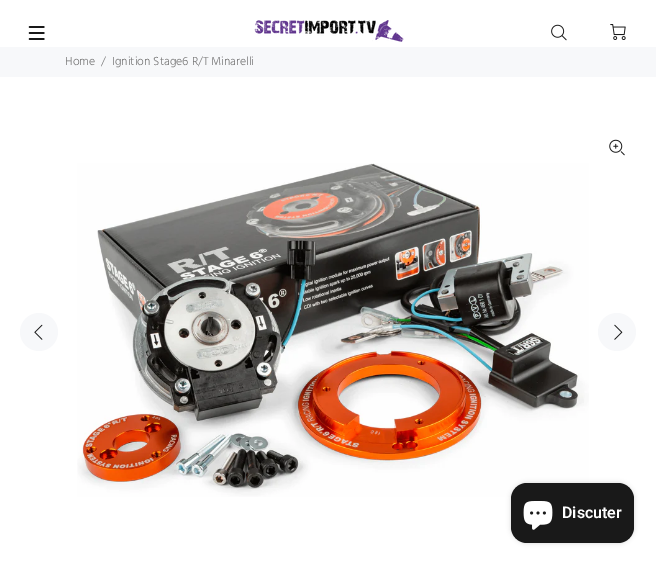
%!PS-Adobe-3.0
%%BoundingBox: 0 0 656 564
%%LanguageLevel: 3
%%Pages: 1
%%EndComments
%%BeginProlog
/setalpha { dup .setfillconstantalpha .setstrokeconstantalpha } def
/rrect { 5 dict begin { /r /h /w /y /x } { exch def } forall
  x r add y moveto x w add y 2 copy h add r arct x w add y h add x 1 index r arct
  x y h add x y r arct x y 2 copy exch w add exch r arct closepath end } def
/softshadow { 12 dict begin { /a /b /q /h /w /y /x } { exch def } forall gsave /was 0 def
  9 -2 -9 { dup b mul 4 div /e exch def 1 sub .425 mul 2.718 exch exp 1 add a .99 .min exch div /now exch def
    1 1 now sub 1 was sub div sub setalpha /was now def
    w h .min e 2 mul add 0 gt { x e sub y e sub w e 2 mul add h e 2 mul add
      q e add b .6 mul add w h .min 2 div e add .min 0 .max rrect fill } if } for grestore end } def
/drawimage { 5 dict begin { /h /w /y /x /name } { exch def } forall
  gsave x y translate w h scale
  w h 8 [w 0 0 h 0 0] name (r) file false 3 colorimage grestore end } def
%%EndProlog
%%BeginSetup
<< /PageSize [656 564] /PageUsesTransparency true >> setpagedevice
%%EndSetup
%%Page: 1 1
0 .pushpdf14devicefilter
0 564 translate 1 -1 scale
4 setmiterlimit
1 setgray
0 0 656 564 rectfill
(images/1.raw) 28 26 17 14 drawimage
(images/2.raw) 254 20 150 22 drawimage
(images/3.raw) 551 24 16 17 drawimage
(images/4.raw) 610 24 16 16 drawimage
0.969 0.973 0.98 setrgbcolor
0 47 656 30 rectfill
(images/5.raw) 609 139 16 17 drawimage
(images/6.raw) 77 163 512 334 drawimage
newpath 39 332 19 0 360 arc closepath fill
(images/7.raw) 34 324 9 16 drawimage
newpath 617 332 19 0 360 arc closepath fill
(images/8.raw) 614 324 9 16 drawimage
0 setgray
511 483 123 60 16 2.5 0.15 softshadow
0.098 setgray
511 483 123 60 16 rrect fill
(images/9.raw) 523 501 30 29 drawimage
/Hind-Light [12 0 0 -12 0 0] selectfont
0.467 setgray
65 65 moveto (Home) show
101 65 moveto (/) show
112 65 moveto (Ignition Stage6 R/T Minarelli) show
/Roboto-SemiBold [16 0 0 -16 0 0] selectfont
1 setgray
562 518 moveto (Discuter) show
.poppdf14devicefilter showpage
%%EOF
